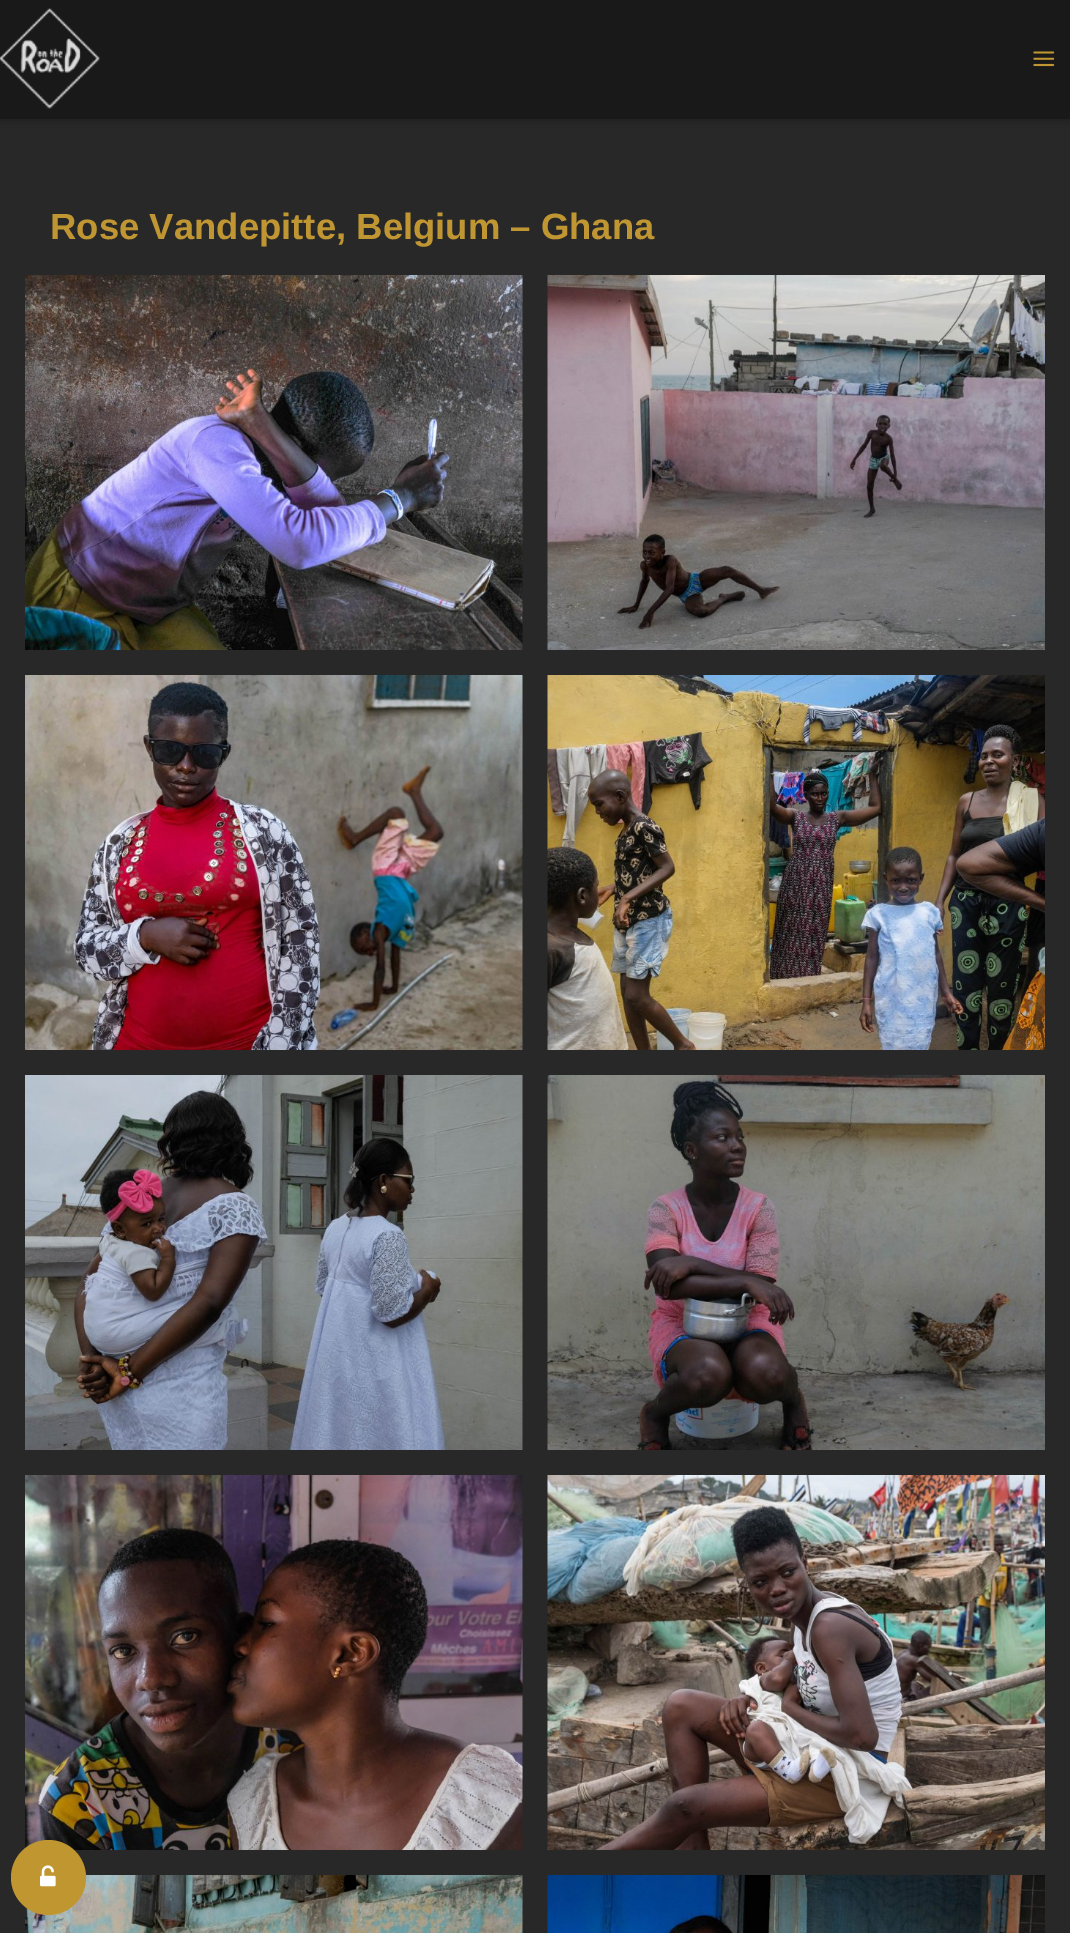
%!PS-Adobe-3.0
%%BoundingBox: 0 0 1070 1933
%%LanguageLevel: 3
%%Pages: 1
%%EndComments
%%BeginProlog
/setalpha { dup .setfillconstantalpha .setstrokeconstantalpha } def
/rrect { 5 dict begin { /r /h /w /y /x } { exch def } forall
  x r add y moveto x w add y 2 copy h add r arct x w add y h add x 1 index r arct
  x y h add x y r arct x y 2 copy exch w add exch r arct closepath end } def
/softshadow { 12 dict begin { /a /b /q /h /w /y /x } { exch def } forall gsave /was 0 def
  9 -2 -9 { dup b mul 4 div /e exch def 1 sub .425 mul 2.718 exch exp 1 add a .99 .min exch div /now exch def
    1 1 now sub 1 was sub div sub setalpha /was now def
    w h .min e 2 mul add 0 gt { x e sub y e sub w e 2 mul add h e 2 mul add
      q e add b .6 mul add w h .min 2 div e add .min 0 .max rrect fill } if } for grestore end } def
/drawimage { 5 dict begin { /h /w /y /x /name } { exch def } forall
  gsave x y translate w h scale
  w h 8 [w 0 0 h 0 0] name (r) file false 3 colorimage grestore end } def
%%EndProlog
%%BeginSetup
<< /PageSize [1070 1933] /PageUsesTransparency true >> setpagedevice
%%EndSetup
%%Page: 1 1
0 .pushpdf14devicefilter
0 1933 translate 1 -1 scale
4 setmiterlimit
0.157 setgray
0 0 1070 1933 rectfill
0 setgray
0 1 1070 119 0 6 0.32 softshadow
0.098 setgray
0 0 1070 119 rectfill
(images/1.raw) 0 8 100 101 drawimage
(images/2.raw) 1033 51 22 16 drawimage
(images/3.raw) 25 275 498 375 drawimage
(images/4.raw) 547 275 498 375 drawimage
(images/5.raw) 25 675 498 375 drawimage
(images/6.raw) 547 675 498 375 drawimage
(images/7.raw) 25 1075 498 375 drawimage
(images/8.raw) 547 1075 498 375 drawimage
(images/9.raw) 25 1475 498 375 drawimage
(images/10.raw) 547 1475 498 375 drawimage
(images/11.raw) 25 1875 498 58 drawimage
(images/12.raw) 547 1875 498 58 drawimage
0.753 0.588 0.188 setrgbcolor
newpath 48.5 1877.5 37.5 0 360 arc closepath fill
(images/13.raw) 40 1865 16 22 drawimage
/LiberationSans-Bold [36.5 0 0 -36.5 0 0] selectfont
0.753 0.588 0.196 setrgbcolor
50 239 moveto (Rose Vandepitte, Belgium – Ghana) show
.poppdf14devicefilter showpage
%%EOF
